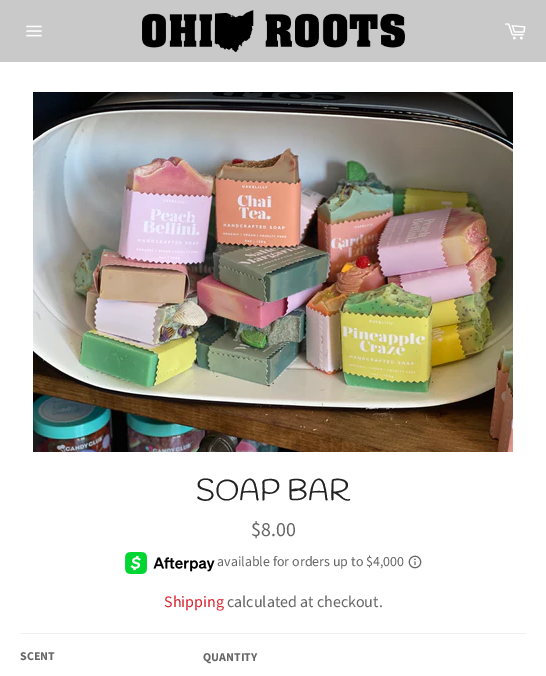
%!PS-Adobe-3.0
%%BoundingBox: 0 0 546 676
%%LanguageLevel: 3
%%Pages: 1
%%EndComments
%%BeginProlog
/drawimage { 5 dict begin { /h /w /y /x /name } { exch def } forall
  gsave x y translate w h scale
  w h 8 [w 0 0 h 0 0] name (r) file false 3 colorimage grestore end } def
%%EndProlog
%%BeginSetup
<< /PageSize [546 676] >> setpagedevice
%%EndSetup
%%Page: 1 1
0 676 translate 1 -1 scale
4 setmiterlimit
0.788 setgray
0 0 546 676 rectfill
(images/1.raw) 26 25 16 12 drawimage
(images/2.raw) 142 10 263 42 drawimage
(images/3.raw) 505 23 21 17 drawimage
1 setgray
0 62 546 614 rectfill
(images/4.raw) 33 92 480 360 drawimage
(images/5.raw) 125 552 90 22 drawimage
(images/6.raw) 408 555 14 14 drawimage
0.941 setgray
20 633 506 1 rectfill
/Handlee-Regular [30 0 0 -30 0 0] selectfont
0.133 setgray
196 500 moveto (SOAP BAR) show
/SourceSansPro-Regular [20 0 0 -20 0 0] selectfont
0.4 setgray
251 536 moveto ($8.00) show
/SourceSansPro-Regular [14 0 0 -14 0 0] selectfont
217 566 moveto (available for orders up to $4,000) show
/SourceSansPro-Regular [16 0 0 -16 0 0] selectfont
0.847 0.137 0.184 setrgbcolor
164 607 moveto (Shipping) show
0.4 setgray
227 607 moveto (calculated at checkout.) show
/SourceSansPro-Bold [12 0 0 -12 0 0] selectfont
20 660 moveto (SCENT) show
203 661 moveto (QUANTITY) show
showpage
%%EOF
